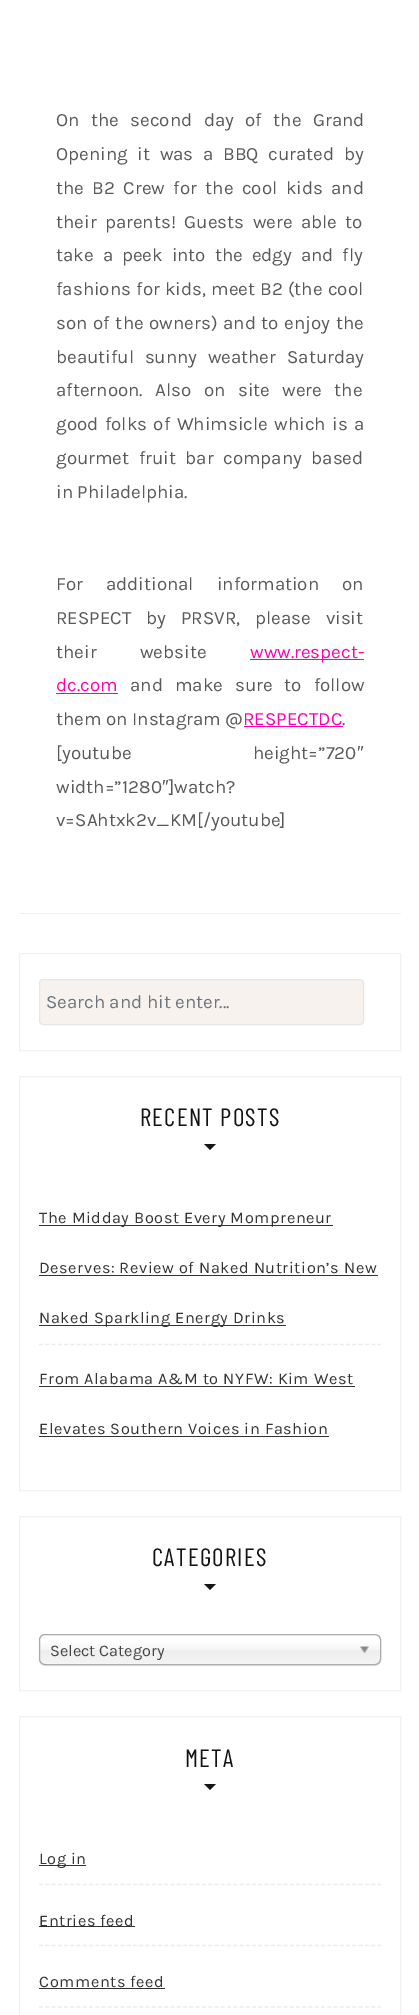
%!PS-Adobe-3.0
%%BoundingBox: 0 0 419 2015
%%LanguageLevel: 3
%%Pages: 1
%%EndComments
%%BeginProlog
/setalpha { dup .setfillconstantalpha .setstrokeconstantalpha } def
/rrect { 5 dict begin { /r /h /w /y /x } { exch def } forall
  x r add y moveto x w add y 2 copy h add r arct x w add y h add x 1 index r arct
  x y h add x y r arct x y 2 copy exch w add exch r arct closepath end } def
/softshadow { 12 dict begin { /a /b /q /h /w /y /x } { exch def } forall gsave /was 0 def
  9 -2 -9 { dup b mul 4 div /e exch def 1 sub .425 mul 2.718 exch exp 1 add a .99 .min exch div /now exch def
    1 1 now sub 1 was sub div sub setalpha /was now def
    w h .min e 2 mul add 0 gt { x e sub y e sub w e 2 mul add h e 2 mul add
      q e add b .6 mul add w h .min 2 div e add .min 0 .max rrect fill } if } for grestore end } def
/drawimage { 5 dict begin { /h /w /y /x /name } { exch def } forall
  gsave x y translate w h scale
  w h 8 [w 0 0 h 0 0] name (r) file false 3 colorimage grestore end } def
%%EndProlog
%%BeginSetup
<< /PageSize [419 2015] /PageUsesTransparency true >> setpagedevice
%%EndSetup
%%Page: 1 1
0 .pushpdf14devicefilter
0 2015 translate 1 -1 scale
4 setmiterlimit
1 setgray
0 0 419 2015 rectfill
0.949 0.945 0.945 setrgbcolor
19 913 382 1 rectfill
1 0 0.698 setrgbcolor
250 659 114 1 rectfill
56 693 62 1 rectfill
244 726 99 1 rectfill
0.949 0.945 0.945 setrgbcolor
19.5 953.5 381 97 rectstroke
0.969 0.949 0.933 setrgbcolor
40 980 323 44 2.5 rrect fill
0.902 setgray
39.5 979.5 324 45 3.5 rrect stroke
0.949 0.945 0.945 setrgbcolor
19.5 1076.5 381 414 rectstroke
0.086 setgray
newpath 204 1144 moveto 216 1144 lineto 210 1150 lineto closepath fill
0.922 setgray
1.2 setlinewidth
[3.75 2.52] 0 setdash
newpath 39 1344.5 moveto 381 1344.5 lineto stroke
0.2 setgray
39 1225 294 1 rectfill
39 1275 339 1 rectfill
39 1325 247 1 rectfill
39 1386 316 1 rectfill
39 1436 290 1 rectfill
0.949 0.945 0.945 setrgbcolor
1 setlinewidth
[] 0 setdash
19.5 1516.5 381 174 rectstroke
0.086 setgray
newpath 204 1584 moveto 216 1584 lineto 210 1590 lineto closepath fill
0 setgray
39 1635 342 31 6 0.5 0.1 softshadow
gsave 40 1635 340 29 5 rrect clip newpath
<< /ShadingType 2 /ColorSpace /DeviceRGB /Coords [210 1635 210 1664] /Extend [true true] /Function << /FunctionType 3 /Domain [0 1] /Functions [<< /FunctionType 2 /Domain [0 1] /C0 [1 1 1] /C1 [1 1 1] /N 1 >> << /FunctionType 2 /Domain [0 1] /C0 [1 1 1] /C1 [0.965 0.965 0.965] /N 1 >> << /FunctionType 2 /Domain [0 1] /C0 [0.965 0.965 0.965] /C1 [0.933 0.933 0.933] /N 1 >> << /FunctionType 2 /Domain [0 1] /C0 [0.933 0.933 0.933] /C1 [0.957 0.957 0.957] /N 1 >>] /Bounds [0.2 0.5 0.52] /Encode [0 1 0 1 0 1 0 1] >> >> shfill grestore
0.667 setgray
39.5 1634.5 341 30 5.5 rrect stroke
(images/1.raw) 360 1646 9 8 drawimage
0.949 0.945 0.945 setrgbcolor
19.5 1716.5 381 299 rectstroke
0.086 setgray
newpath 204 1784 moveto 216 1784 lineto 210 1790 lineto closepath fill
0.922 setgray
1.2 setlinewidth
[3.75 2.52] 0 setdash
newpath 39 1884.5 moveto 381 1884.5 lineto stroke
0.2 setgray
39 1865 47 1 rectfill
0.922 setgray
newpath 39 1945.5 moveto 381 1945.5 lineto stroke
0.2 setgray
39 1926 96 1 rectfill
0.922 setgray
newpath 39 2007 moveto 381 2007 lineto stroke
0.2 setgray
39 1988 126 1 rectfill
/Karla-Regular [18.75 0 0 -18.75 0 0] selectfont
0.349 setgray
56 126 moveto 7 0 32 (On the second day of the Grand) widthshow
56 160 moveto 5.25 0 32 (Opening it was a BBQ curated by) widthshow
56 194 moveto 4 0 32 (the B2 Crew for the cool kids and) widthshow
56 228 moveto 4 0 32 (their parents! Guests were able to) widthshow
56 261 moveto 4.5 0 32 (take a peek into the edgy and fly) widthshow
56 295 moveto 0.75 0 32 (fashions for kids, meet B2 \(the cool) widthshow
56 329 moveto 1.25 0 32 (son of the owners\) and to enjoy the) widthshow
56 363 moveto 6 0 32 (beautiful sunny weather) widthshow
287 363 moveto (Saturday) show
56 396 moveto 8 0 32 (afternoon. Also on site were the) widthshow
56 430 moveto 2 0 32 (good folks of Whimsicle which is a) widthshow
56 464 moveto 5 0 32 (gourmet fruit bar company based) widthshow
56 498 moveto (in Philadelphia.) show
56 590 moveto 18.5 0 32 (For additional information on) widthshow
56 624 moveto 10.5 0 32 (RESPECT by PRSVR, please visit) widthshow
56 658 moveto 39 0 32 (their website) widthshow
1 0 0.698 setrgbcolor
250 658 moveto (www.respect-) show
56 691 moveto (dc.com) show
0.349 setgray
130 691 moveto 7.5 0 32 (and make sure to follow) widthshow
56 725 moveto (them on Instagram @) show
1 0 0.698 setrgbcolor
243 725 moveto (RESPECTDC) show
0.349 setgray
342 725 moveto (.) show
56 759 moveto 117 0 32 ([youtube height=”720) widthshow
/LiberationSans-Regular [18.75 0 0 -18.75 0 0] selectfont
357 759 moveto (″) show
/Karla-Regular [18.75 0 0 -18.75 0 0] selectfont
56 793 moveto (width=”1280) show
/LiberationSans-Regular [18.75 0 0 -18.75 0 0] selectfont
162 793 moveto (″) show
/Karla-Regular [18.75 0 0 -18.75 0 0] selectfont
169 793 moveto (]watch?) show
56 826 moveto (v=SAhtxk2v_KM[/youtube]) show
0.424 0.459 0.49 setrgbcolor
46 1008 moveto (Search and hit enter...) show
/BarlowCondensed-Regular [25 0 0 -25 0 0] selectfont
0.075 setgray
140 1126 moveto 1.25 0 (RECENT POSTS) ashow
/Karla-Regular [16.25 0 0 -16.25 0 0] selectfont
0.2 setgray
39 1223 moveto 0.6 0 (The Midday Boost Every Mompreneur) ashow
39 1273 moveto 0.6 0 (Deserves: Review of Naked Nutrition’s New) ashow
39 1323 moveto 0.6 0 (Naked Sparkling Energy Drinks) ashow
39 1384 moveto 0.6 0 (From Alabama A&M to NYFW: Kim West) ashow
39 1434 moveto 0.6 0 (Elevates Southern Voices in Fashion) ashow
/BarlowCondensed-Regular [25 0 0 -25 0 0] selectfont
0.075 setgray
152 1566 moveto 1.25 0 (CATEGORIES) ashow
/Karla-Regular [16.25 0 0 -16.25 0 0] selectfont
0.267 setgray
50 1656 moveto (Select Category) show
/BarlowCondensed-Regular [25 0 0 -25 0 0] selectfont
0.075 setgray
185 1767 moveto 1.25 0 (META) ashow
/Karla-Regular [16.25 0 0 -16.25 0 0] selectfont
0.2 setgray
39 1864 moveto 0.6 0 (Log in) ashow
39 1926 moveto 0.6 0 (Entries feed) ashow
39 1987 moveto 0.6 0 (Comments feed) ashow
.poppdf14devicefilter showpage
%%EOF
